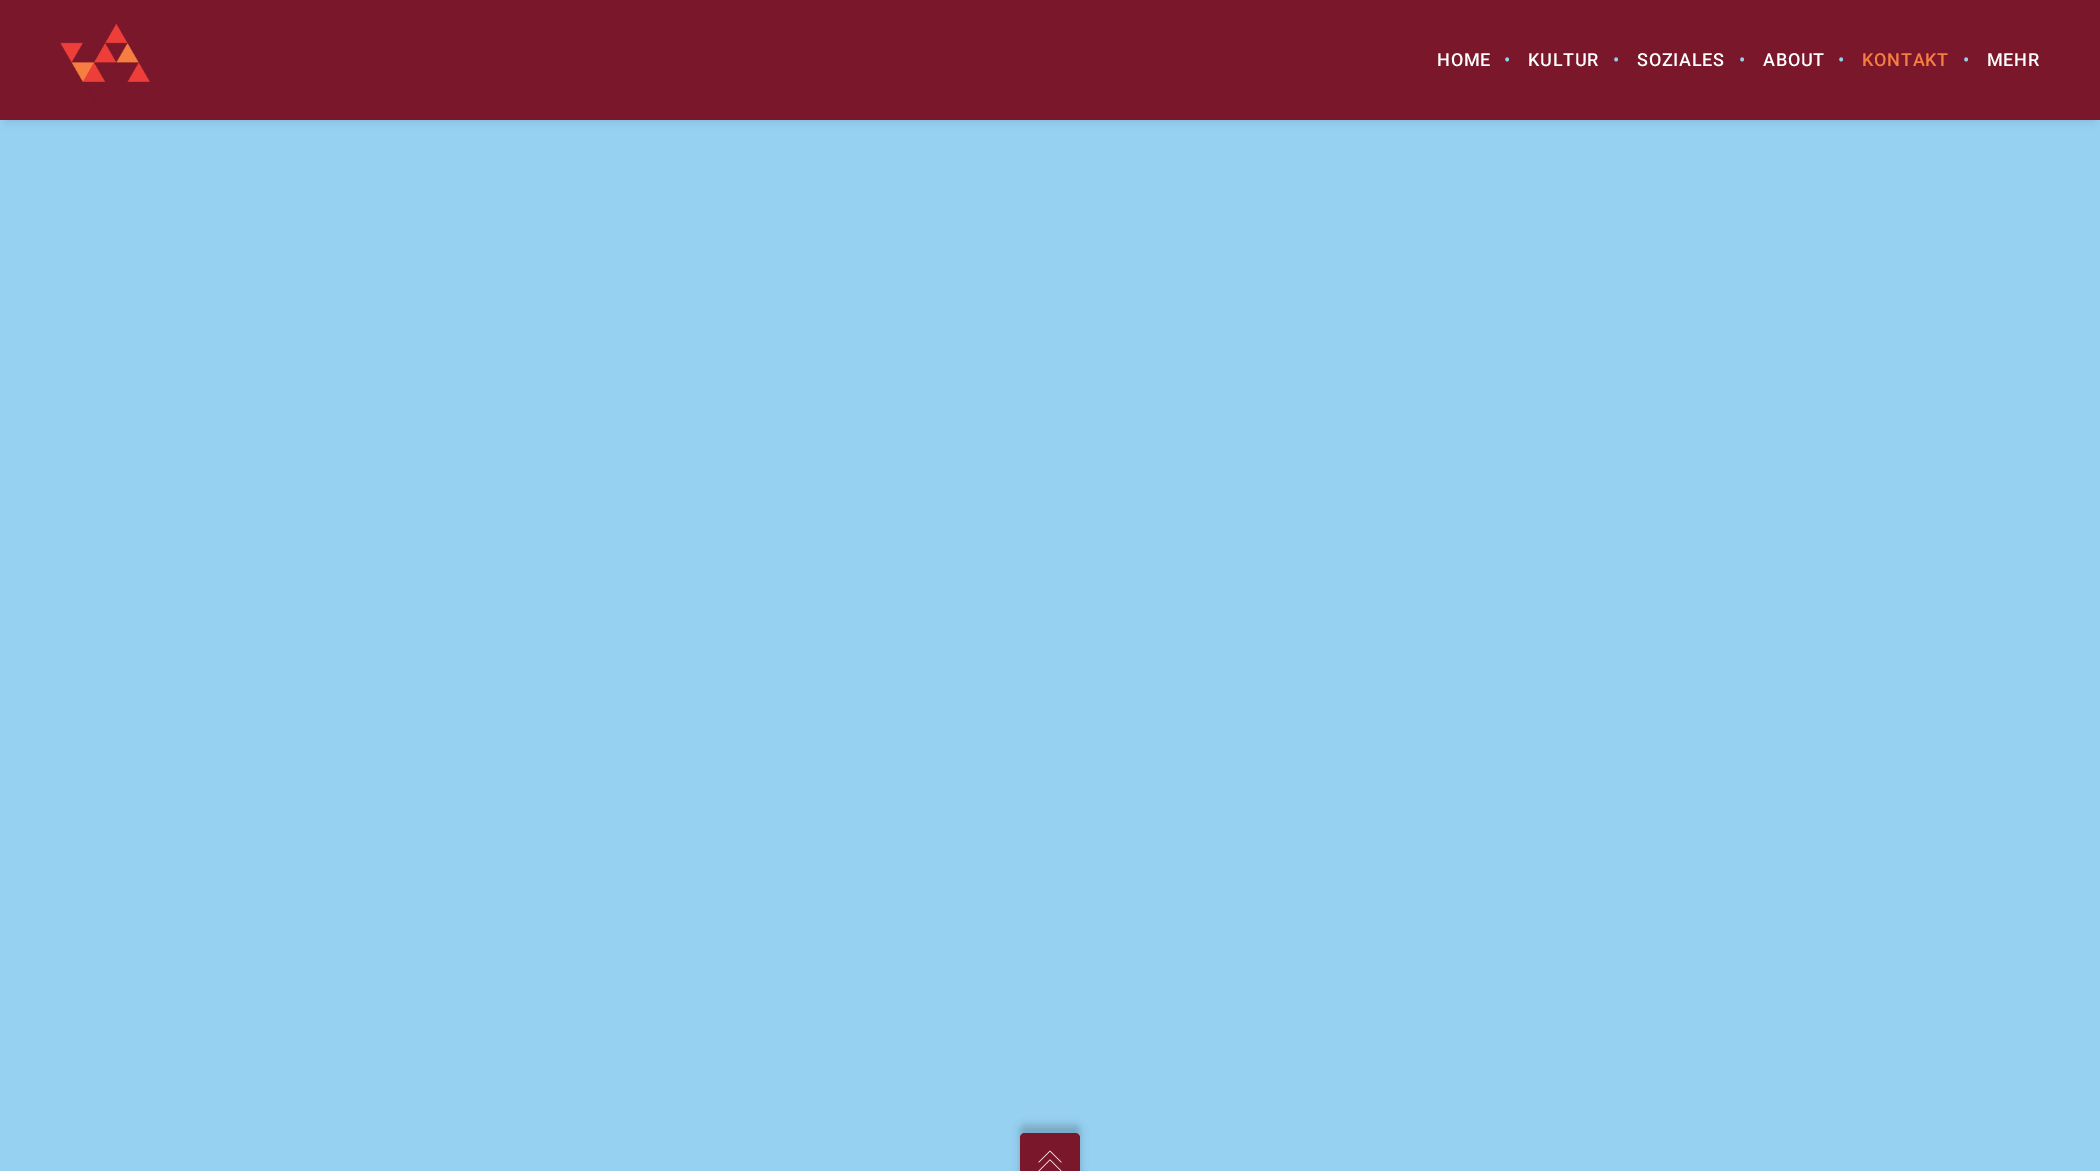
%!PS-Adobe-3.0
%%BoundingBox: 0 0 2100 1171
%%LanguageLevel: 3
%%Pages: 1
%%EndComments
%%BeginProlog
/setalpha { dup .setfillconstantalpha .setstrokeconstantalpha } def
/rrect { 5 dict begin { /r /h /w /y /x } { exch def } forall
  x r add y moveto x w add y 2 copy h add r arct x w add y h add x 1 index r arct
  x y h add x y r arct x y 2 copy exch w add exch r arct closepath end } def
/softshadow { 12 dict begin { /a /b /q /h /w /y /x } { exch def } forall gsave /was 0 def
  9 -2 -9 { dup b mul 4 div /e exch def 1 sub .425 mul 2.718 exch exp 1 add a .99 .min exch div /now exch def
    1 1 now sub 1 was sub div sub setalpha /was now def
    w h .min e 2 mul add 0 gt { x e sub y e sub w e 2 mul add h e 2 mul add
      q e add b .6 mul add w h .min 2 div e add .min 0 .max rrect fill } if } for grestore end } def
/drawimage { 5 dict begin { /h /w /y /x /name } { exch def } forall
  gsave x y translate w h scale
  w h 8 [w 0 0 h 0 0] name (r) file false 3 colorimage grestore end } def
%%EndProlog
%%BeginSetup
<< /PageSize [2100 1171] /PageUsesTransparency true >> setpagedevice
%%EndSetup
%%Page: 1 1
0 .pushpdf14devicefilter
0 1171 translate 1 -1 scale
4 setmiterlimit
0.588 0.82 0.949 setrgbcolor
0 0 2100 1171 rectfill
0 setgray
6 14 2088 108 0 4 0.1 softshadow
0.478 0.09 0.169 setrgbcolor
0 0 2100 120 rectfill
(images/1.raw) 60 23 90 78 drawimage
0 setgray
1020 1125 60 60 5 4 0.2 softshadow
0.478 0.09 0.169 setrgbcolor
newpath 1025 1133 moveto 1075 1133 lineto 1078 1133 1080 1135 1080 1138 curveto 1080 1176 lineto 1020 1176 lineto 1020 1138 lineto 1020 1135 1022 1133 1025 1133 curveto closepath fill
(images/2.raw) 1038 1150 24 21 drawimage
/Roboto-Medium [18 0 0 -18 0 0] selectfont
1 setgray
1437 66 moveto 0.75 0 (HOME) ashow
0.588 0.82 0.949 setrgbcolor
1504 66 moveto 0.75 0 (•) ashow
1 setgray
1528 66 moveto 0.75 0 (KULTUR) ashow
0.588 0.82 0.949 setrgbcolor
1613 66 moveto 0.75 0 (•) ashow
1 setgray
1637 66 moveto 0.75 0 (SOZIALES) ashow
0.588 0.82 0.949 setrgbcolor
1739 66 moveto 0.75 0 (•) ashow
1 setgray
1763 66 moveto 0.75 0 (ABOUT) ashow
0.588 0.82 0.949 setrgbcolor
1838 66 moveto 0.75 0 (•) ashow
0.969 0.494 0.255 setrgbcolor
1862 66 moveto 0.75 0 (KONTAKT) ashow
0.588 0.82 0.949 setrgbcolor
1963 66 moveto 0.75 0 (•) ashow
1 setgray
1987 66 moveto 0.75 0 (MEHR) ashow
.poppdf14devicefilter showpage
%%EOF
